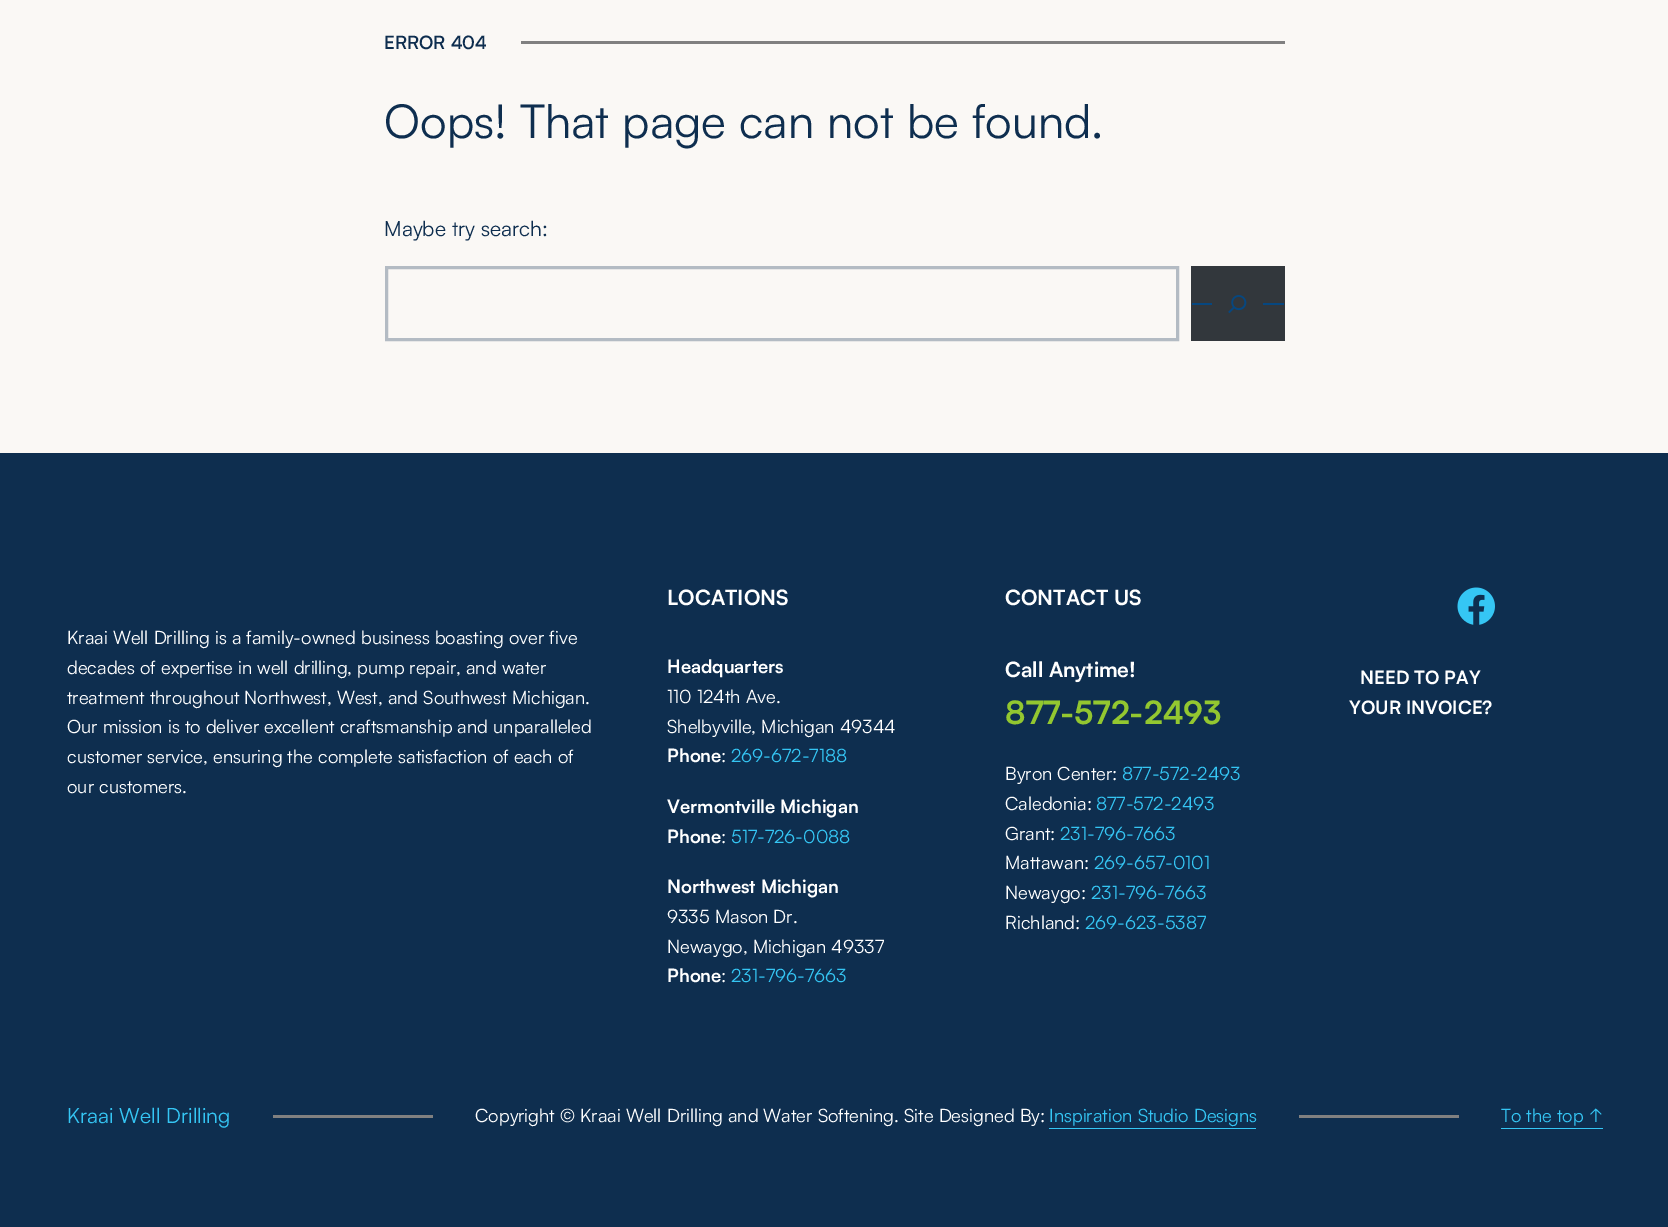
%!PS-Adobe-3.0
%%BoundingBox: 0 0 1668 1227
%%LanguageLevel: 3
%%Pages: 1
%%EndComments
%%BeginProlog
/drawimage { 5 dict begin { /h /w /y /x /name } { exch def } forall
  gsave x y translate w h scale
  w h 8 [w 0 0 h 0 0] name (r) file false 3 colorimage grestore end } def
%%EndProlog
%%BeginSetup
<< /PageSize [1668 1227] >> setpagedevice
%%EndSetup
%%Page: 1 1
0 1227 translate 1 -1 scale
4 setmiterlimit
0.98 0.973 0.961 setrgbcolor
0 0 1668 1227 rectfill
0.502 setgray
521 41 764 3 rectfill
0.702 0.733 0.765 setrgbcolor
3 setlinewidth
386.5 267.5 791 72 rectstroke
0.196 0.216 0.235 setrgbcolor
1191 266 94 75 rectfill
(images/1.raw) 1228 295 19 19 drawimage
0.024 0.278 0.502 setrgbcolor
newpath 1263 303 moveto 1284 303 lineto 1284 305 lineto 1263 305 lineto closepath 1212 303 moveto 1212 305 lineto 1192 305 lineto 1192 303 lineto closepath eofill
0.055 0.18 0.31 setrgbcolor
0 453 1668 774 rectfill
(images/2.raw) 1457 587 38 38 drawimage
0.502 setgray
273 1115 160 3 rectfill
0.208 0.776 0.957 setrgbcolor
1049 1128 207 1 rectfill
0.502 setgray
1299 1115 160 3 rectfill
0.208 0.776 0.957 setrgbcolor
1501 1128 102 1 rectfill
/Satoshi-SemiBold [18.35 0 0 -18.35 0 0] selectfont
0.055 0.18 0.31 setrgbcolor
384 49 moveto (ERROR 404) show
/Satoshi-Regular [46.75 0 0 -46.75 0 0] selectfont
384 138 moveto (Oops! That page can not be found.) show
/Satoshi-Regular [21 0 0 -21 0 0] selectfont
384 236 moveto (Maybe try search:) show
/Satoshi-Regular [18.35 0 0 -18.35 0 0] selectfont
1 setgray
67 644 moveto (Kraai Well Drilling is a family-owned business boasting over five) show
67 674 moveto (decades of expertise in well drilling, pump repair, and water) show
67 704 moveto (treatment throughout Northwest, West, and Southwest Michigan.) show
67 733 moveto (Our mission is to deliver excellent craftsmanship and unparalleled) show
67 763 moveto (customer service, ensuring the complete satisfaction of each of) show
67 793 moveto (our customers.) show
/Satoshi-Bold [21 0 0 -21 0 0] selectfont
667 605 moveto (LOCATIONS) show
/Satoshi-Bold [18.35 0 0 -18.35 0 0] selectfont
667 673 moveto (Headquarters) show
/Satoshi-Regular [18.35 0 0 -18.35 0 0] selectfont
667 703 moveto (110 124th Ave.) show
667 733 moveto (Shelbyville, Michigan 49344) show
/Satoshi-Bold [18.35 0 0 -18.35 0 0] selectfont
667 762 moveto (Phone) show
/Satoshi-Regular [18.35 0 0 -18.35 0 0] selectfont
721 762 moveto (:) show
0.208 0.776 0.957 setrgbcolor
731 762 moveto (269-672-7188) show
/Satoshi-Bold [18.35 0 0 -18.35 0 0] selectfont
1 setgray
667 813 moveto (Vermontville Michigan) show
667 843 moveto (Phone) show
/Satoshi-Regular [18.35 0 0 -18.35 0 0] selectfont
721 843 moveto (:) show
0.208 0.776 0.957 setrgbcolor
731 843 moveto (517-726-0088) show
/Satoshi-Bold [18.35 0 0 -18.35 0 0] selectfont
1 setgray
667 893 moveto (Northwest Michigan) show
/Satoshi-Regular [18.35 0 0 -18.35 0 0] selectfont
667 923 moveto (9335 Mason Dr.) show
667 953 moveto (Newaygo, Michigan 49337) show
/Satoshi-Bold [18.35 0 0 -18.35 0 0] selectfont
667 982 moveto (Phone) show
/Satoshi-Regular [18.35 0 0 -18.35 0 0] selectfont
721 982 moveto (:) show
0.208 0.776 0.957 setrgbcolor
731 982 moveto (231-796-7663) show
/Satoshi-Bold [21 0 0 -21 0 0] selectfont
1 setgray
1005 605 moveto (CONTACT US) show
1005 677 moveto (Call Anytime!) show
/Satoshi-Bold [32 0 0 -32 0 0] selectfont
0.576 0.78 0.188 setrgbcolor
1005 724 moveto (877-572-2493) show
/Satoshi-Regular [18.35 0 0 -18.35 0 0] selectfont
1 setgray
1005 780 moveto (Byron Center:) show
0.208 0.776 0.957 setrgbcolor
1122 780 moveto (877-572-2493) show
1 setgray
1005 810 moveto (Caledonia:) show
0.208 0.776 0.957 setrgbcolor
1096 810 moveto (877-572-2493) show
1 setgray
1005 840 moveto (Grant:) show
0.208 0.776 0.957 setrgbcolor
1060 840 moveto (231-796-7663) show
1 setgray
1005 869 moveto (Mattawan:) show
0.208 0.776 0.957 setrgbcolor
1094 869 moveto (269-657-0101) show
1 setgray
1005 899 moveto (Newaygo:) show
0.208 0.776 0.957 setrgbcolor
1091 899 moveto (231-796-7663) show
1 setgray
1005 929 moveto (Richland:) show
0.208 0.776 0.957 setrgbcolor
1085 929 moveto (269-623-5387) show
/Satoshi-Bold [18.35 0 0 -18.35 0 0] selectfont
1 setgray
1360 684 moveto (NEED TO PAY) show
1349 714 moveto (YOUR INVOICE?) show
/Satoshi-Regular [21 0 0 -21 0 0] selectfont
0.208 0.776 0.957 setrgbcolor
67 1123 moveto (Kraai Well Drilling) show
/Satoshi-Regular [18.35 0 0 -18.35 0 0] selectfont
1 setgray
475 1122 moveto (Copyright © Kraai Well Drilling and Water Softening. Site Designed By:) show
0.208 0.776 0.957 setrgbcolor
1049 1122 moveto (Inspiration Studio Designs) show
1501 1122 moveto (To the top ↑) show
showpage
%%EOF
